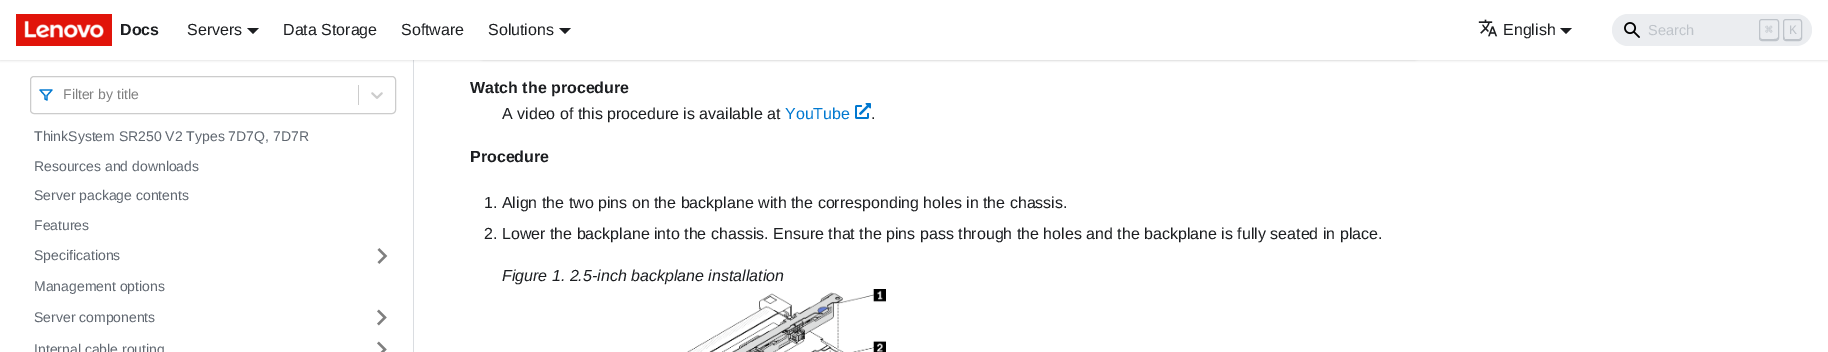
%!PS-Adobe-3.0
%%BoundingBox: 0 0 1828 352
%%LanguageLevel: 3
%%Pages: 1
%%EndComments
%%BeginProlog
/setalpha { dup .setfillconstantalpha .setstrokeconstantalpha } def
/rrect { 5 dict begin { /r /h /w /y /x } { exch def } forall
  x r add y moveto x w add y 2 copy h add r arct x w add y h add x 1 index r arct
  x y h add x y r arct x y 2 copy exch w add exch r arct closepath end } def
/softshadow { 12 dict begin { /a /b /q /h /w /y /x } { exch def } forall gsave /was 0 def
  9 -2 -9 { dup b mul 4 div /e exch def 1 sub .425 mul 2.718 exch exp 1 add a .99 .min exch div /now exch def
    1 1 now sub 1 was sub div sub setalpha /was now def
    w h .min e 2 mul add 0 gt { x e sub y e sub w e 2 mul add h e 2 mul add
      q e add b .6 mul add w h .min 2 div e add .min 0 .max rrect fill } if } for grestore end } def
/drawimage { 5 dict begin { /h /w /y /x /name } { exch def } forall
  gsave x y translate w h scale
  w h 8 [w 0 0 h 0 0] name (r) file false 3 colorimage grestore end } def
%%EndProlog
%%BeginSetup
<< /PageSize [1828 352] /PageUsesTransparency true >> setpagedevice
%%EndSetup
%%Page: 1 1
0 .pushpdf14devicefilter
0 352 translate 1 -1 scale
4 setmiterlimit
1 setgray
0 0 1828 352 rectfill
0.855 0.867 0.882 setrgbcolor
413 60 1 292 rectfill
0 setgray
0 1 1828 60 0 1 0.1 softshadow
478 -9 942 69 6 1 0.1 softshadow
1 setgray
0 0 1828 60 rectfill
(images/1.raw) 16 14 96 32 drawimage
0.11 0.118 0.129 setrgbcolor
newpath 247 28 moveto 259 28 lineto 253 34 lineto closepath fill
newpath 559 28 moveto 571 28 lineto 565 34 lineto closepath fill
(images/2.raw) 1478 19 20 18 drawimage
newpath 1560 28 moveto 1572 28 lineto 1566 34 lineto closepath fill
0.922 0.929 0.941 setrgbcolor
1612 14 200 32 16 rrect fill
(images/3.raw) 1624 22 16 16 drawimage
0.745 0.765 0.788 setrgbcolor
newpath 1778 37 moveto 1777.5 38.5 1776.5 39 1774 39 curveto 1762 39 lineto 1761 39 1760.5 38.5 1760 37.5 curveto 1760 40.5 1762.5 40 1764.5 40 curveto 1773.5 40 lineto 1776.5 40 1778 40.5 1778 37 curveto closepath fill
1759.5 19.5 19 21 2.5 rrect stroke
newpath 1801 37 moveto 1801 38 1800 39 1799 39 curveto 1785 39 lineto 1784 36.5 lineto 1784 40 1785 40 1788 40 curveto 1797 40 lineto 1800 40 1801 40 1801 37 curveto closepath fill
1783.5 19.5 18 21 2.5 rrect stroke
0.8 setgray
30.5 76.5 365 37 3.5 rrect stroke
0 0.471 0.816 setrgbcolor
1.2 setlinewidth
1 setlinecap
1 setlinejoin
newpath 52 90 moveto 40 90 lineto 45 95.5 lineto 45 99 lineto 47 100 lineto 47 95.5 lineto closepath stroke
0.8 setgray
358 85 1 20 rectfill
(images/4.raw) 371 92 12 7 drawimage
(images/5.raw) 377 248 11 16 drawimage
(images/6.raw) 377 309 10 17 drawimage
(images/7.raw) 377 341 10 11 drawimage
(images/8.raw) 855 103 16 16 drawimage
(images/9.raw) 687 289 199 63 drawimage
/LiberationSans-Bold [16 0 0 -16 0 0] selectfont
0.11 0.118 0.129 setrgbcolor
120 35 moveto (Docs) show
/LiberationSans-Regular [16 0 0 -16 0 0] selectfont
187 35 moveto (Servers) show
283 35 moveto (Data Storage) show
401 35 moveto (Software) show
488 35 moveto (Solutions) show
1503 35 moveto (English) show
/LiberationSans-Regular [14.5 0 0 -14.5 0 0] selectfont
0.745 0.765 0.788 setrgbcolor
1648 35 moveto (Search) show
/DejaVuSansMono-Regular [13 0 0 -13 0 0] selectfont
1765 34 moveto (⌘) show
/LiberationMono-Regular [13 0 0 -13 0 0] selectfont
1789 34 moveto (K) show
/LiberationSans-Regular [14 0 0 -14 0 0] selectfont
0.502 setgray
63 99 moveto (Filter by title) show
0.376 0.404 0.439 setrgbcolor
34 141 moveto (ThinkSystem SR250 V2 Types 7D7Q, 7D7R) show
34 171 moveto (Resources and downloads) show
34 200 moveto (Server package contents) show
34 230 moveto (Features) show
34 260 moveto (Specifications) show
34 291 moveto (Management options) show
34 322 moveto (Server components) show
34 354 moveto (Internal cable routing) show
/LiberationSans-Bold [16 0 0 -16 0 0] selectfont
0.11 0.118 0.129 setrgbcolor
470 93 moveto (Watch the procedure) show
/LiberationSans-Regular [16 0 0 -16 0 0] selectfont
502 119 moveto (A video of this procedure is available at) show
0 0.471 0.816 setrgbcolor
785 119 moveto (YouTube) show
0.11 0.118 0.129 setrgbcolor
871 119 moveto (.) show
/LiberationSans-Bold [16 0 0 -16 0 0] selectfont
470 162 moveto (Procedure) show
/LiberationSans-Regular [16 0 0 -16 0 0] selectfont
484 208 moveto (1. Align the two pins on the backplane with the corresponding holes in the chassis.) show
484 239 moveto (2. Lower the backplane into the chassis. Ensure that the pins pass through the holes and the backplane is fully seated in place.) show
/LiberationSans-Italic [16 0 0 -16 0 0] selectfont
502 281 moveto (Figure 1. 2.5-inch backplane installation) show
.poppdf14devicefilter showpage
%%EOF
